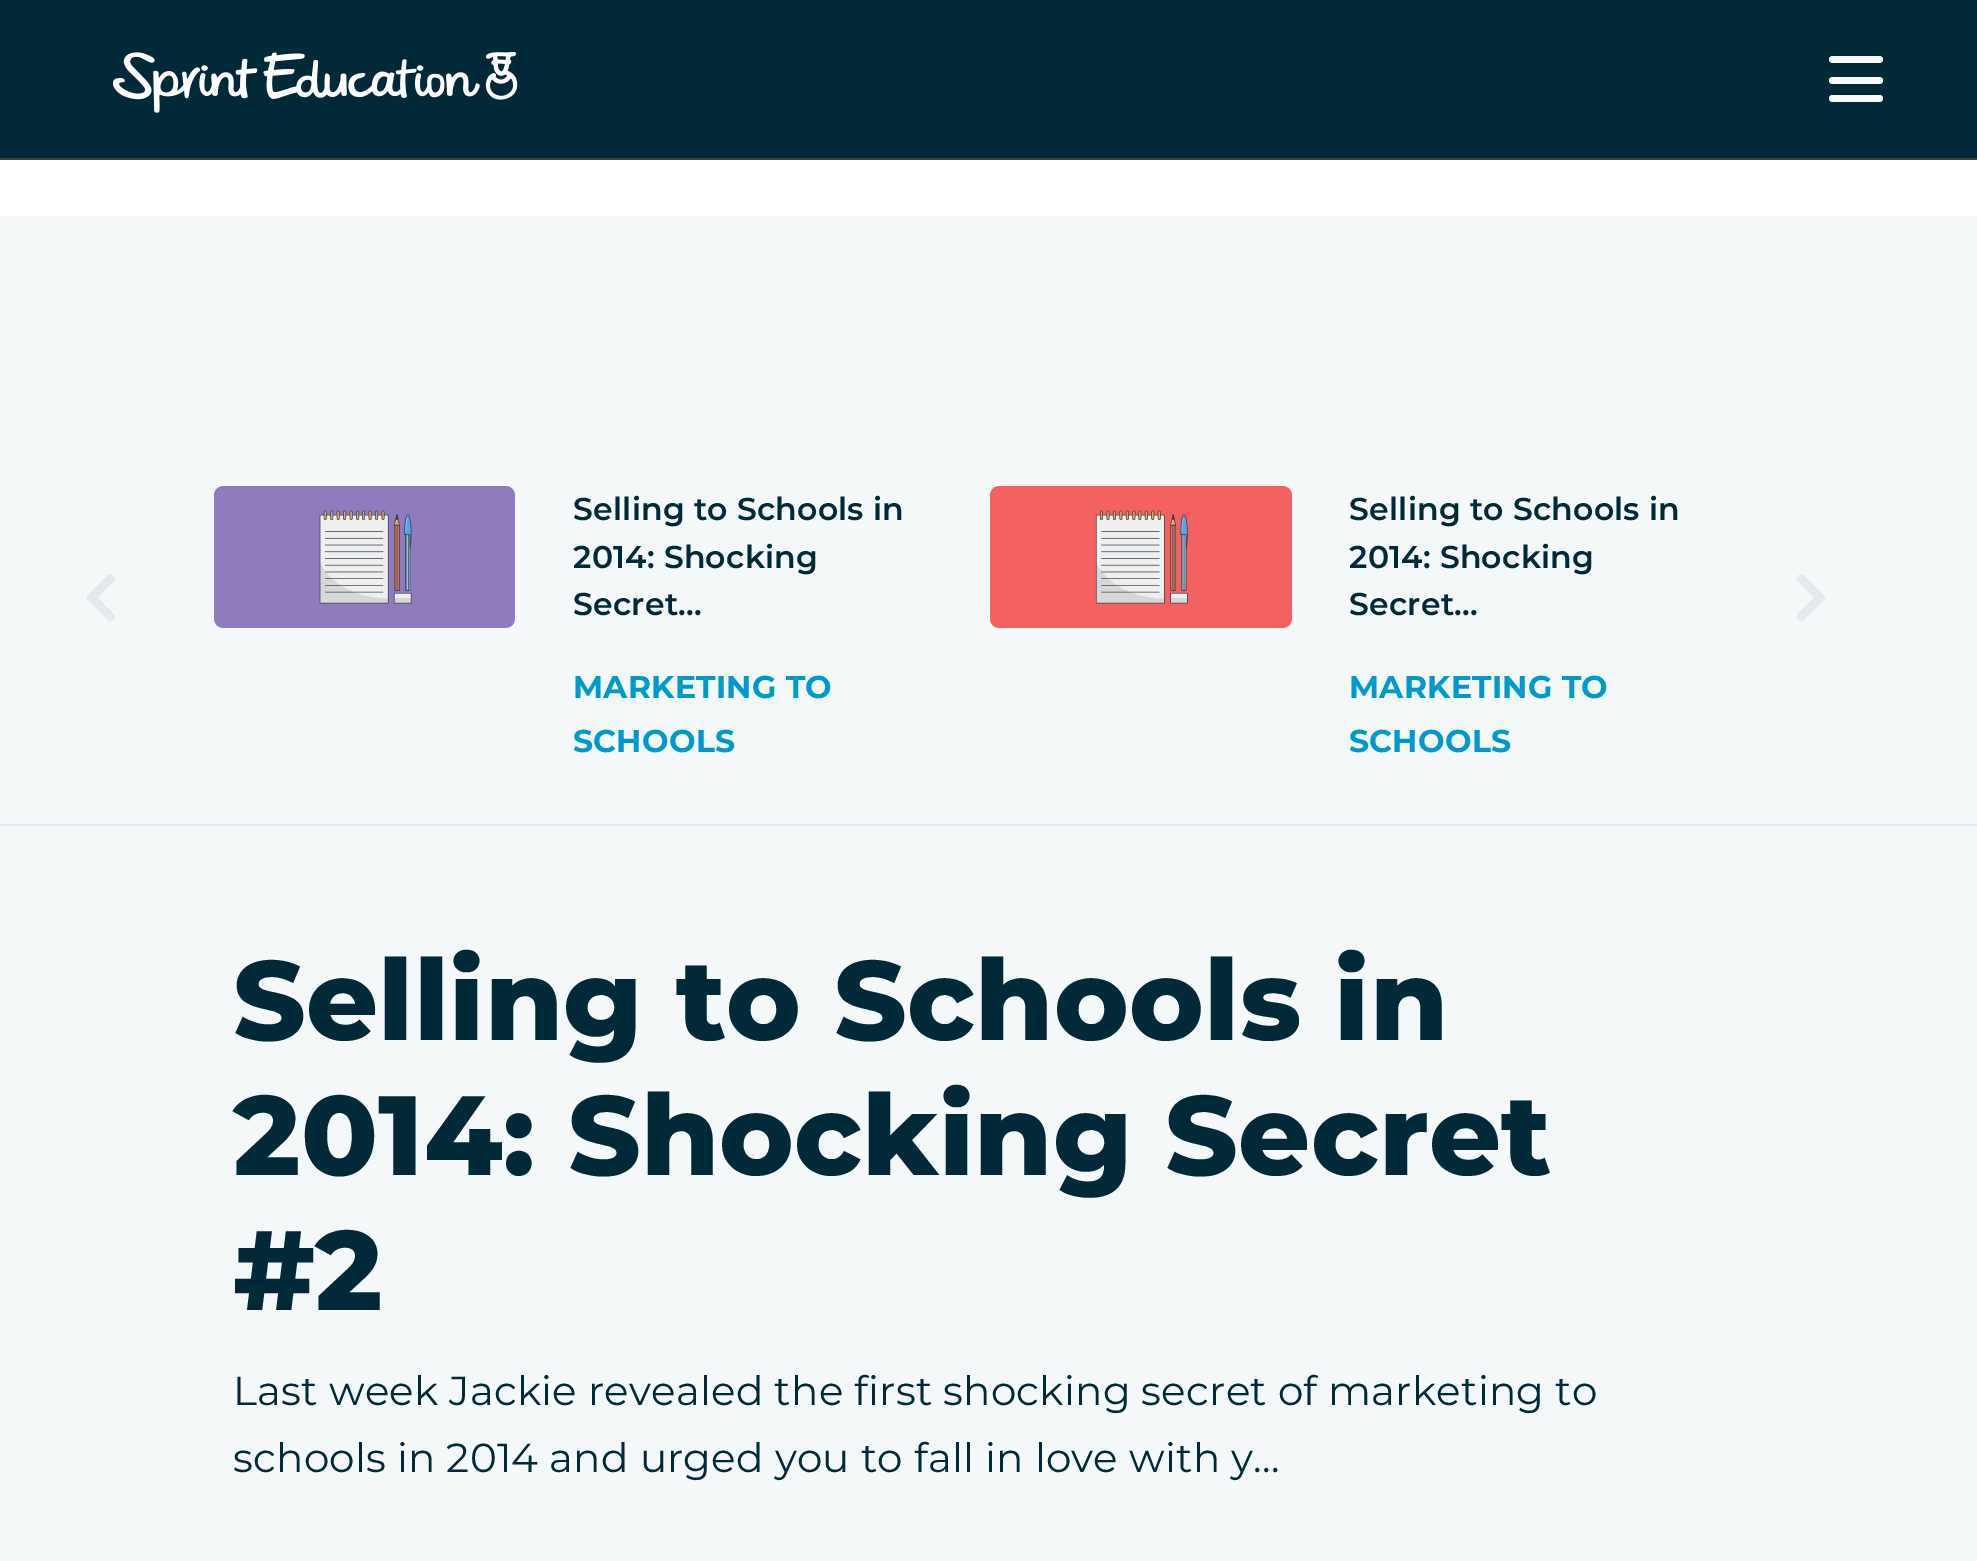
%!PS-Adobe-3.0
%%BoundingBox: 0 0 1977 1561
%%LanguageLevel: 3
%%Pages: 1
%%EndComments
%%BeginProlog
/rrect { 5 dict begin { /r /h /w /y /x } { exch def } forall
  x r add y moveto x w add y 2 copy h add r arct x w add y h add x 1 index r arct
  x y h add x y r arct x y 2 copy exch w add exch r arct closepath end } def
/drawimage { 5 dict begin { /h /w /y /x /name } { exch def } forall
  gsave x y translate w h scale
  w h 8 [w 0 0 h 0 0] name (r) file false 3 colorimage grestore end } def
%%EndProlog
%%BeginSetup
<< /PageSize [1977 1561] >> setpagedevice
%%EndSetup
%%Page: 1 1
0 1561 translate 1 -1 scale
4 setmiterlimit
1 setgray
0 0 1977 1561 rectfill
0.004 0.161 0.216 setrgbcolor
0 0 1977 158 rectfill
0.22 0.247 0.271 setrgbcolor
0 158 1977 2 rectfill
(images/1.raw) 113 52 405 61 drawimage
0.976 0.98 0.98 setrgbcolor
1829 56 54 7 3.5 rrect fill
1829 77 54 7 3.5 rrect fill
1829 95 54 7 3.5 rrect fill
0.957 0.973 0.976 setrgbcolor
0 216 1977 608 rectfill
0.898 0.914 0.922 setrgbcolor
0 824 1977 2 rectfill
(images/2.raw) 86 574 30 48 drawimage
(images/3.raw) 214 486 301 142 drawimage
(images/4.raw) 990 486 302 142 drawimage
(images/5.raw) 1796 574 30 48 drawimage
0.957 0.973 0.976 setrgbcolor
0 826 1977 735 rectfill
/Montserrat-SemiBold [31.5 0 0 -31.5 0 0] selectfont
0.004 0.161 0.216 setrgbcolor
573 520 moveto 0.23 0 (Selling to Schools in) ashow
573 568 moveto 0.23 0 (2014: Shocking) ashow
573 615 moveto 0.23 0 (Secret...) ashow
/Montserrat-Bold [31.5 0 0 -31.5 0 0] selectfont
0 0.6 0.8 setrgbcolor
573 698 moveto 0.23 0 (MARKETING TO) ashow
573 752 moveto 0.23 0 (SCHOOLS) ashow
/Montserrat-SemiBold [31.5 0 0 -31.5 0 0] selectfont
0.004 0.161 0.216 setrgbcolor
1349 520 moveto 0.23 0 (Selling to Schools in) ashow
1349 568 moveto 0.23 0 (2014: Shocking) ashow
1349 615 moveto 0.23 0 (Secret...) ashow
/Montserrat-Bold [31.5 0 0 -31.5 0 0] selectfont
0 0.6 0.8 setrgbcolor
1349 698 moveto 0.23 0 (MARKETING TO) ashow
1349 752 moveto 0.23 0 (SCHOOLS) ashow
/Montserrat-ExtraBold [112.5 0 0 -112.5 0 0] selectfont
0.004 0.161 0.216 setrgbcolor
233 1040 moveto 0.23 0 (Selling to Schools in) ashow
233 1175 moveto 0.23 0 (2014: Shocking Secret) ashow
233 1310 moveto 0.23 0 (#2) ashow
/Montserrat-Regular [40.5 0 0 -40.5 0 0] selectfont
233 1405 moveto 0.23 0 (Last week Jackie revealed the first shocking secret of marketing to) ashow
233 1472 moveto 0.23 0 (schools in 2014 and urged you to fall in love with y...) ashow
showpage
%%EOF
